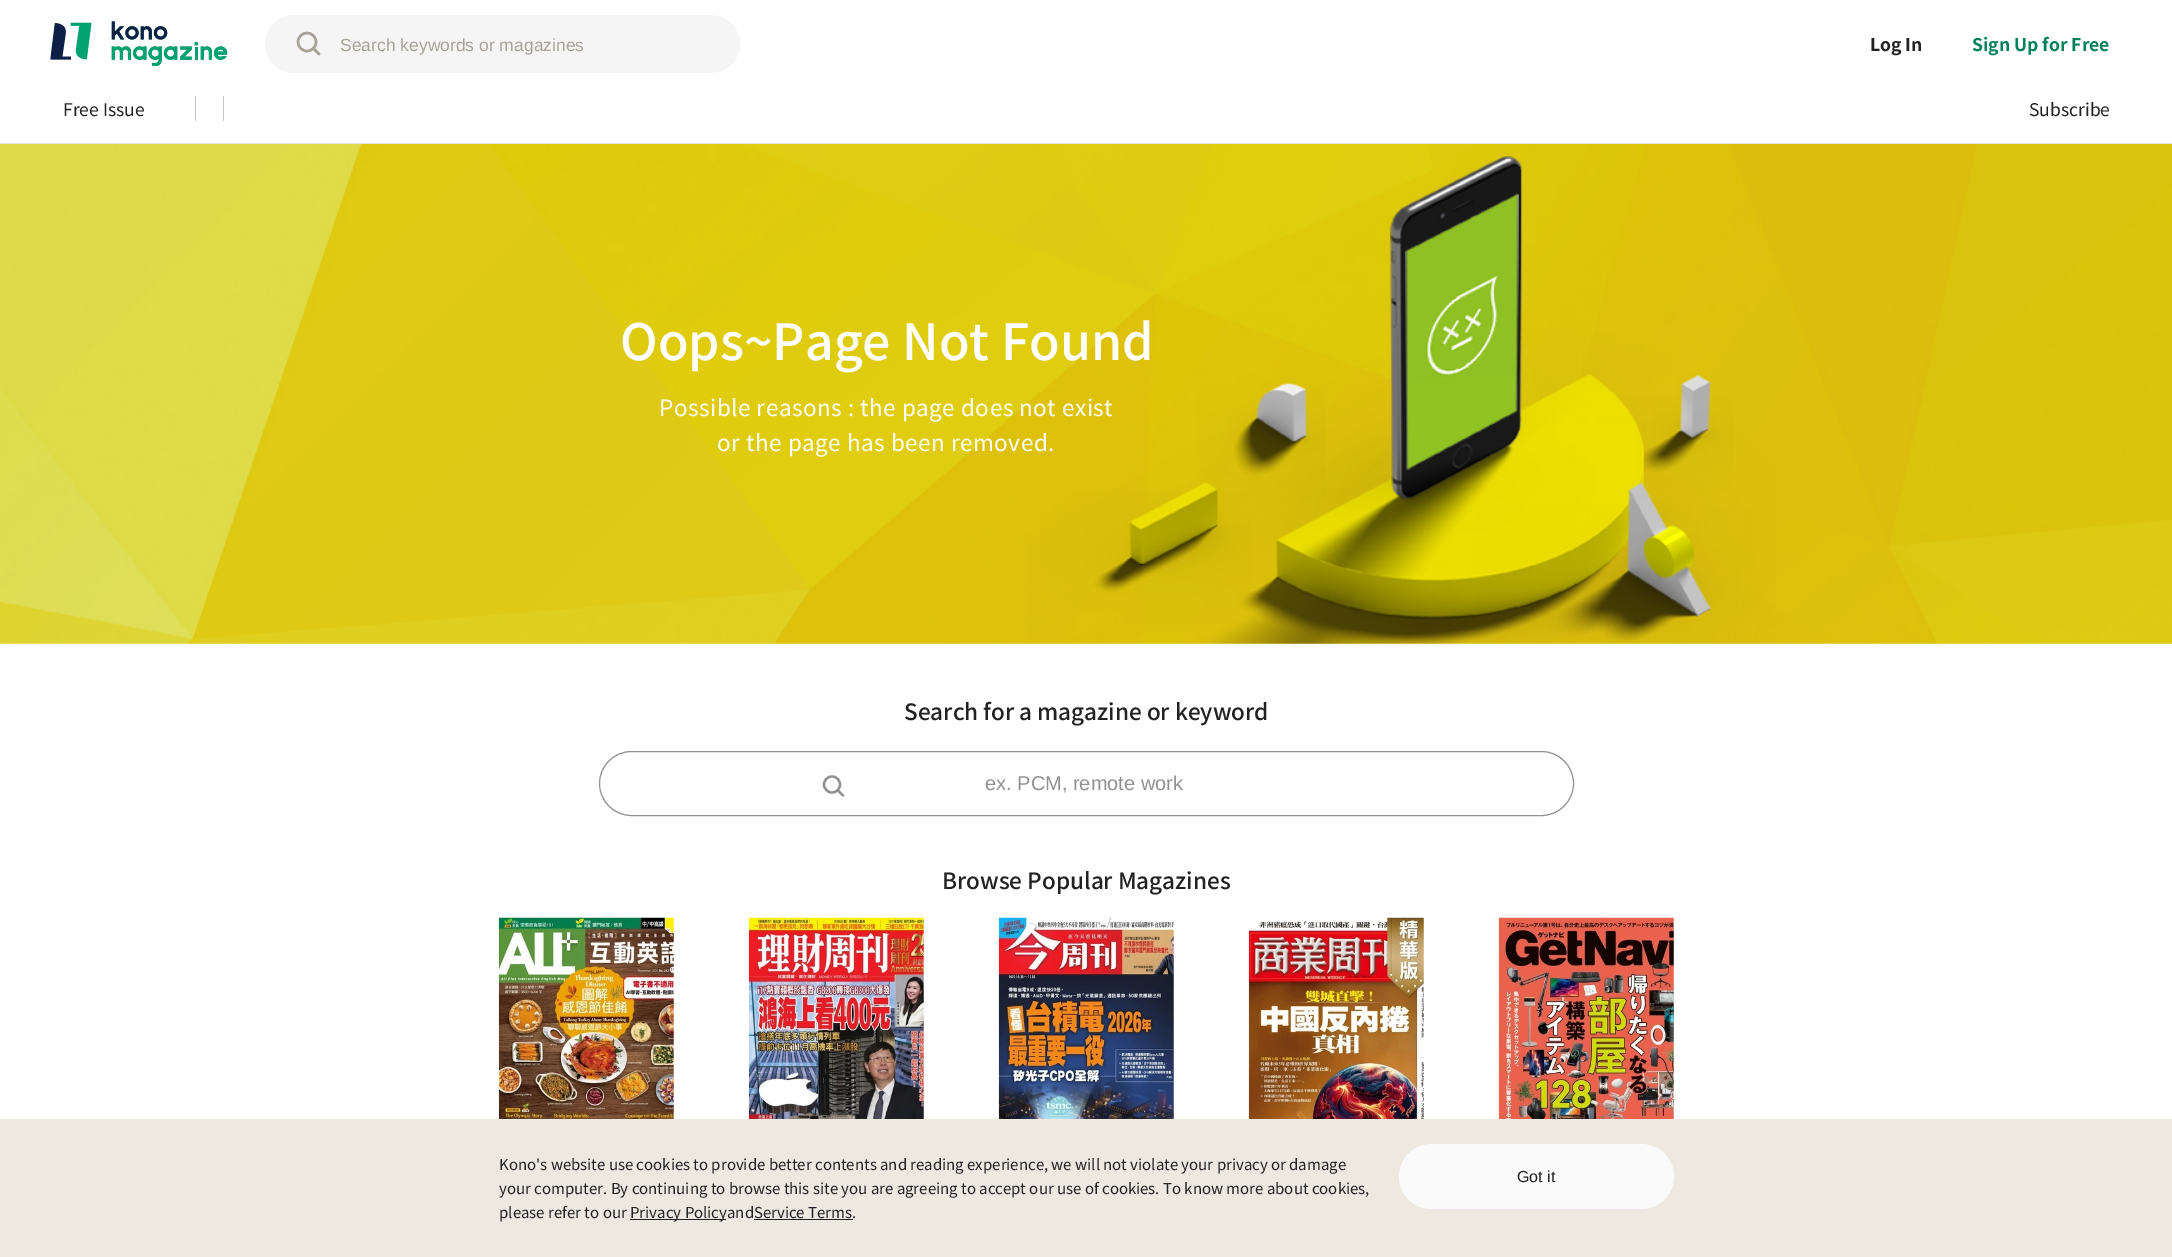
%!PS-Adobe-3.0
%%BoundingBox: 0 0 2172 1257
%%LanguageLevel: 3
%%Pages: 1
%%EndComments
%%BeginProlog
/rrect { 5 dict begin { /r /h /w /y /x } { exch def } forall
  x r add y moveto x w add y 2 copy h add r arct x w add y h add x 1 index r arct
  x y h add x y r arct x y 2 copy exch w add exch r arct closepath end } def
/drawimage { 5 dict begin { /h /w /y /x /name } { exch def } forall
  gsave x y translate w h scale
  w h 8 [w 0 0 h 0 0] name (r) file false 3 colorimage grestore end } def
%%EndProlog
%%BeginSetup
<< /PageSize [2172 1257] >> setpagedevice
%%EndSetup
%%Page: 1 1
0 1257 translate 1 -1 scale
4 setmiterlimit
1 setgray
0 0 2172 1257 rectfill
0.902 setgray
0 143 2172 1 rectfill
(images/1.raw) 50 21 178 45 drawimage
0.961 setgray
newpath 294 15 moveto 328 15 lineto 328 73 lineto 294 73 lineto 278 73 265 60 265 44 curveto 265 28 278 15 294 15 curveto closepath fill
0.655 0.639 0.596 setrgbcolor
2.5 setlinewidth
newpath 307 42 9 0 360 arc closepath stroke
1 setlinecap
newpath 314 49 moveto 319 54 lineto stroke
0.961 setgray
newpath 328 15 moveto 711 15 lineto 727 15 740 28 740 44 curveto 740 60 727 73 711 73 curveto 328 73 lineto closepath fill
0.78 setgray
195 96 1 25 rectfill
223 96 1 25 rectfill
(images/2.raw) 0 144 2172 500 drawimage
0.569 setgray
2.3 setlinewidth
0 setlinecap
newpath 832 784.5 8 0 360 arc closepath stroke
1 setlinecap
newpath 838.5 791 moveto 843 795.5 lineto stroke
1 setlinewidth
0 setlinecap
599.5 751.5 974 64 32 rrect stroke
(images/3.raw) 498 917 176 202 drawimage
(images/4.raw) 748 917 176 202 drawimage
(images/5.raw) 998 917 176 202 drawimage
(images/6.raw) 1248 917 176 202 drawimage
(images/7.raw) 1498 917 176 202 drawimage
0.933 0.914 0.878 setrgbcolor
0 1119 2172 138 rectfill
0.133 setgray
630 1219 96 1 rectfill
754 1219 99 1 rectfill
0.98 setgray
1399 1144 275 65 32.5 rrect fill
/LiberationSans-Regular [17.5 0 0 -17.5 0 0] selectfont
0.655 0.639 0.596 setrgbcolor
340 51 moveto (Search keywords or magazines) show
/NotoSansTC-Bold [17.5 0 0 -17.5 0 0] selectfont
0.133 setgray
1870 51 moveto (Log In) show
0 0.506 0.349 setrgbcolor
1972 51 moveto (Sign Up for Free) show
/NotoSansTC-Regular [17.5 0 0 -17.5 0 0] selectfont
0.133 setgray
63 116 moveto (Free Issue) show
2029 116 moveto (Subscribe) show
/NotoSansTC-Medium [50 0 0 -50 0 0] selectfont
1 setgray
620 360 moveto (Oops~Page Not Found) show
/NotoSansTC-Regular [22.5 0 0 -22.5 0 0] selectfont
659 416 moveto 0.5 0 (Possible reasons : the page does not exist) ashow
717 451 moveto 0.5 0 (or the page has been removed.) ashow
/NotoSansTC-Medium [22.5 0 0 -22.5 0 0] selectfont
0.133 setgray
904 720 moveto (Search for a magazine or keyword) show
/LiberationSans-Regular [20 0 0 -20 0 0] selectfont
0.569 setgray
985 790 moveto (ex. PCM, remote work) show
/NotoSansTC-Medium [22.5 0 0 -22.5 0 0] selectfont
0.133 setgray
942 889 moveto (Browse Popular Magazines) show
/NotoSansTC-Regular [15 0 0 -15 0 0] selectfont
499 1170 moveto (Kono's website use cookies to provide better contents and reading experience, we will not violate your privacy or damage) show
499 1194 moveto (your computer. By continuing to browse this site you are agreeing to accept our use of cookies. To know more about cookies,) show
499 1218 moveto (please refer to our) show
630 1218 moveto (Privacy PolicyandService Terms.) show
/LiberationSans-Regular [16 0 0 -16 0 0] selectfont
1517 1182 moveto (Got it) show
showpage
%%EOF
